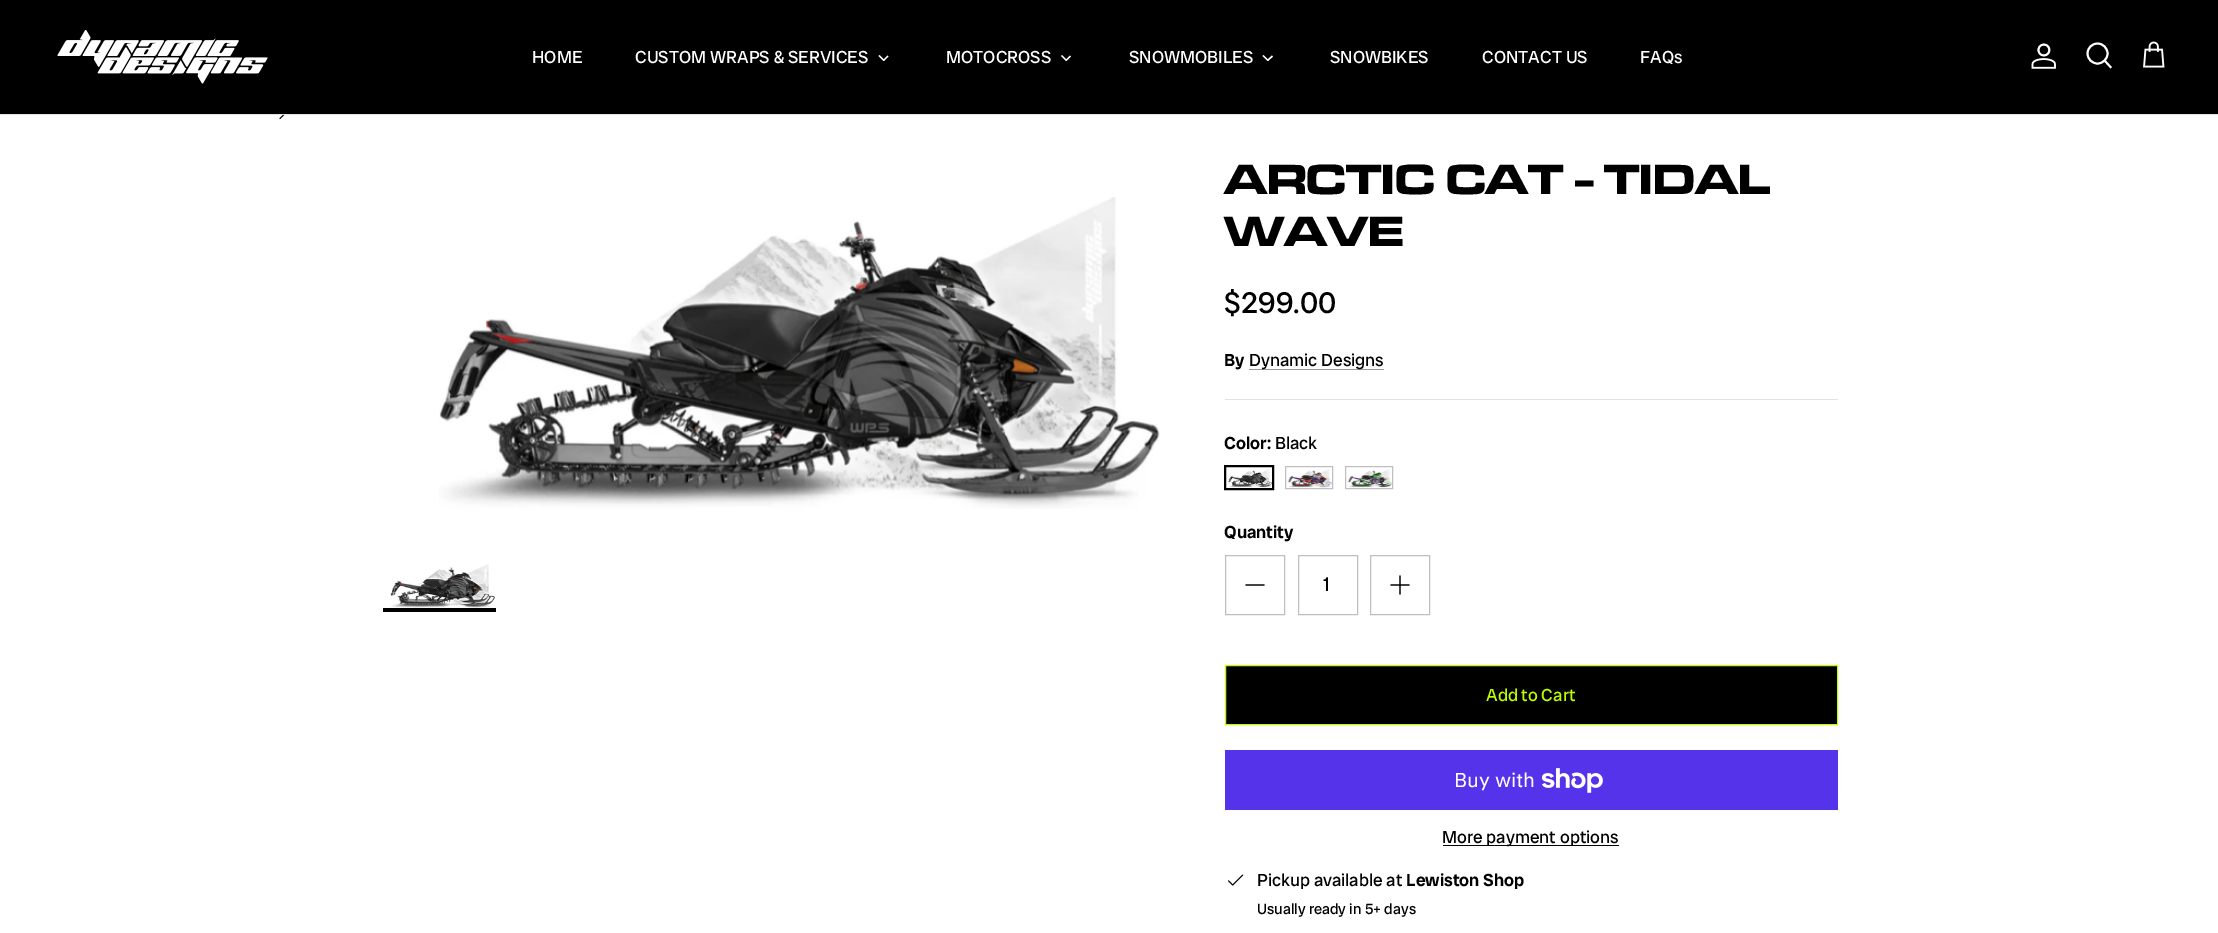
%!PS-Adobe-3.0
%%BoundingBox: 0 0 2218 933
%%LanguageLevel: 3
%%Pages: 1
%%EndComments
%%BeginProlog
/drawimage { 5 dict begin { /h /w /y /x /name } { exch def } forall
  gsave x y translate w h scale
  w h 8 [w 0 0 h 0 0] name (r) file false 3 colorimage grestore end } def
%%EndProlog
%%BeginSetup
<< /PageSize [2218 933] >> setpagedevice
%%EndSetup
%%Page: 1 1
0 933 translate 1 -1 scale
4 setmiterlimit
1 setgray
0 0 2218 933 rectfill
0 setgray
1 setlinecap
1 setlinejoin
newpath 280 118.5 moveto 284 114.5 lineto 280 110.5 lineto stroke
0 0 2218 114 rectfill
0.886 setgray
0 114 2218 1 rectfill
(images/1.raw) 57 30 211 54 drawimage
1 setgray
newpath 887.5 55.5 moveto 888.5 56.5 lineto 884 61 lineto 883 60 lineto closepath fill
newpath 879.5 55 moveto 884.5 60 lineto 883.5 61 lineto 878.5 56 lineto closepath fill
newpath 1070 55.5 moveto 1071 56.5 lineto 1066.5 61 lineto 1065.5 60 lineto closepath fill
newpath 1062 55 moveto 1067 60 lineto 1066 61 lineto 1061 56 lineto closepath fill
newpath 1272 55.5 moveto 1273 56.5 lineto 1268 61 lineto 1267 60 lineto closepath fill
newpath 1263.5 55 moveto 1268.5 60 lineto 1267.5 61 lineto 1262.5 56 lineto closepath fill
(images/2.raw) 2031 43 25 26 drawimage
1.9 setlinewidth
0 setlinecap
0 setlinejoin
newpath 2097.5 53.5 10 0 360 arc closepath stroke
2 setlinecap
newpath 2105 61 moveto 2110.5 67 lineto stroke
(images/3.raw) 2143 41 22 27 drawimage
(images/4.raw) 439 197 721 312 drawimage
(images/5.raw) 390 564 105 44 drawimage
0 setgray
383 608 113 4 rectfill
0.6 setgray
1249 369 135 1 rectfill
0.886 setgray
1225 399 613 1 rectfill
0 setgray
1 setlinewidth
0 setlinecap
1224.5 465.5 49 24 rectstroke
(images/6.raw) 1228 469 44 19 drawimage
1225.5 466.5 47 22 rectstroke
(images/7.raw) 1287 469 45 19 drawimage
0.749 setgray
1285.5 466.5 47 22 rectstroke
(images/8.raw) 1347 469 45 19 drawimage
1345.5 466.5 47 22 rectstroke
1225.5 555.5 59 59 rectstroke
0 setgray
1.2 setlinewidth
1 setlinecap
1 setlinejoin
newpath 1246 585 moveto 1264 585 lineto stroke
0.749 setgray
1 setlinewidth
0 setlinecap
0 setlinejoin
1298.5 555.5 59 59 rectstroke
1370.5 555.5 59 59 rectstroke
0 setgray
1.2 setlinewidth
1 setlinecap
1 setlinejoin
newpath 1400 576 moveto 1400 594 lineto 1391 585 moveto 1409 585 lineto stroke
newpath 1225.5 665.5 moveto 1837.5 665.5 lineto 1837.5 724.5 lineto 1225.5 724.5 lineto closepath gsave fill grestore
0.745 1 0 setrgbcolor
1 setlinewidth
0 setlinecap
0 setlinejoin
stroke
0.329 0.2 0.922 setrgbcolor
1225 750 613 60 rectfill
(images/9.raw) 1541 768 62 25 drawimage
0 setgray
1443 845 176 1 rectfill
(images/10.raw) 1228 874 16 12 drawimage
/RadioCanadaBig-Regular [17.5 0 0 -17.5 0 0] selectfont
1 setgray
532 63 moveto (HOME) show
635 63 moveto (CUSTOM WRAPS & SERVICES) show
946 63 moveto (MOTOCROSS) show
1129 63 moveto (SNOWMOBILES) show
1330 63 moveto (SNOWBIKES) show
1482 63 moveto (CONTACT US) show
1640 63 moveto (FAQs) show
/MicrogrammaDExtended-Bold [43.75 0 0 -43.75 0 0] selectfont
0 setgray
1224 194 moveto (ARCTIC CAT - TIDAL) show
1224 246 moveto (WAVE) show
/RadioCanadaBig-Regular [30 0 0 -30 0 0] selectfont
1224 313 moveto ($299.00) show
/RadioCanadaBig-SemiBold [17.5 0 0 -17.5 0 0] selectfont
1224 366 moveto (By) show
/RadioCanadaBig-Regular [17.5 0 0 -17.5 0 0] selectfont
1249 366 moveto (Dynamic Designs) show
/RadioCanadaBig-SemiBold [17.5 0 0 -17.5 0 0] selectfont
1224 449 moveto (Color:) show
/RadioCanadaBig-Regular [17.5 0 0 -17.5 0 0] selectfont
1275 449 moveto (Black) show
/RadioCanadaBig-SemiBold [17.5 0 0 -17.5 0 0] selectfont
1224 538 moveto (Quantity) show
/RadioCanadaBig-Regular [20 0 0 -20 0 0] selectfont
1323 591 moveto (1) show
/RadioCanadaBig-Regular [17.5 0 0 -17.5 0 0] selectfont
0.745 1 0 setrgbcolor
1486 701 moveto (Add to Cart) show
/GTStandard-Regular [20 0 0 -20 0 0] selectfont
1 setgray
1454 787 moveto (Buy with) show
/RadioCanadaBig-Regular [17.5 0 0 -17.5 0 0] selectfont
0 setgray
1442 843 moveto (More payment options) show
1257 886 moveto (Pickup available at) show
/RadioCanadaBig-SemiBold [17.5 0 0 -17.5 0 0] selectfont
1406 886 moveto (Lewiston Shop) show
/RadioCanadaBig-Regular [14.9 0 0 -14.9 0 0] selectfont
1257 914 moveto (Usually ready in 5+ days) show
showpage
%%EOF
